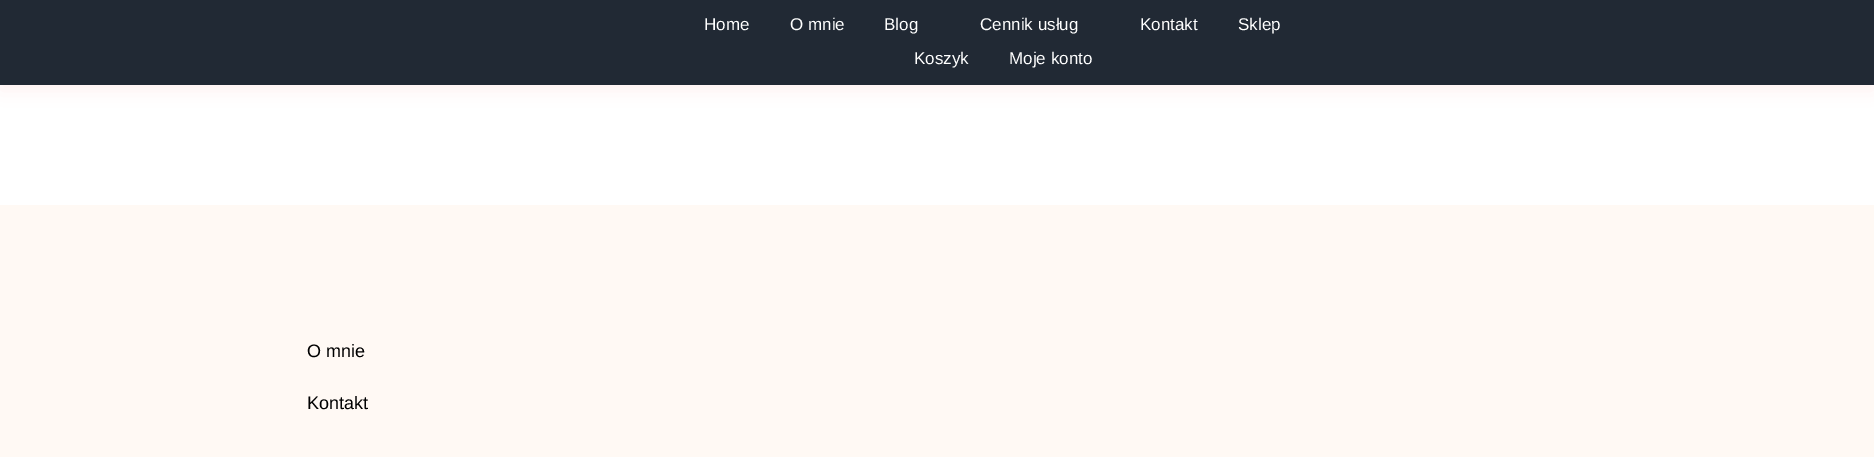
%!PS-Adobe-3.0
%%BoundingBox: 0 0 1874 457
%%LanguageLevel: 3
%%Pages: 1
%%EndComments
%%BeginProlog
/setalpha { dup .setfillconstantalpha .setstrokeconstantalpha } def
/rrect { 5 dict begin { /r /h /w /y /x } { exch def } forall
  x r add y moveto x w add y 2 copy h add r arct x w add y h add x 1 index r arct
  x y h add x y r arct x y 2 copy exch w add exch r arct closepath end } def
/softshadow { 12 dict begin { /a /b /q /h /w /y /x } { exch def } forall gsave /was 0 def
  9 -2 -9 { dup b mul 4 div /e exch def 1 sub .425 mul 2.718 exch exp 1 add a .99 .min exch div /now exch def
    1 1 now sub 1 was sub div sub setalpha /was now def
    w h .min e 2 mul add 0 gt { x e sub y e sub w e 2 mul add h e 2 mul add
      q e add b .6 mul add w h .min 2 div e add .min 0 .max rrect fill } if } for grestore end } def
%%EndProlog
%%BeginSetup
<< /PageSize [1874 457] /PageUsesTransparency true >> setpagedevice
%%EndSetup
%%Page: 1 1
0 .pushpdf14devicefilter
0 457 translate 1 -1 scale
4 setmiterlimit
1 setgray
0 0 1874 457 rectfill
0.906 0.129 0.075 setrgbcolor
0 5 1874 85 0 10 0.06 softshadow
0.129 0.161 0.204 setrgbcolor
0 0 1874 85 rectfill
1 0.976 0.957 setrgbcolor
0 205 1874 252 rectfill
/LiberationSans-Regular [17 0 0 -17 0 0] selectfont
1 setgray
704 30 moveto (Home) show
790 30 moveto (O mnie) show
884 30 moveto (Blog) show
980 30 moveto (Cennik usług) show
1140 30 moveto (Kontakt) show
1238 30 moveto (Sklep) show
914 64 moveto (Koszyk) show
1009 64 moveto (Moje konto) show
/LiberationSans-Regular [18 0 0 -18 0 0] selectfont
0 setgray
307 357 moveto (O mnie) show
307 409 moveto (Kontakt) show
.poppdf14devicefilter showpage
%%EOF
